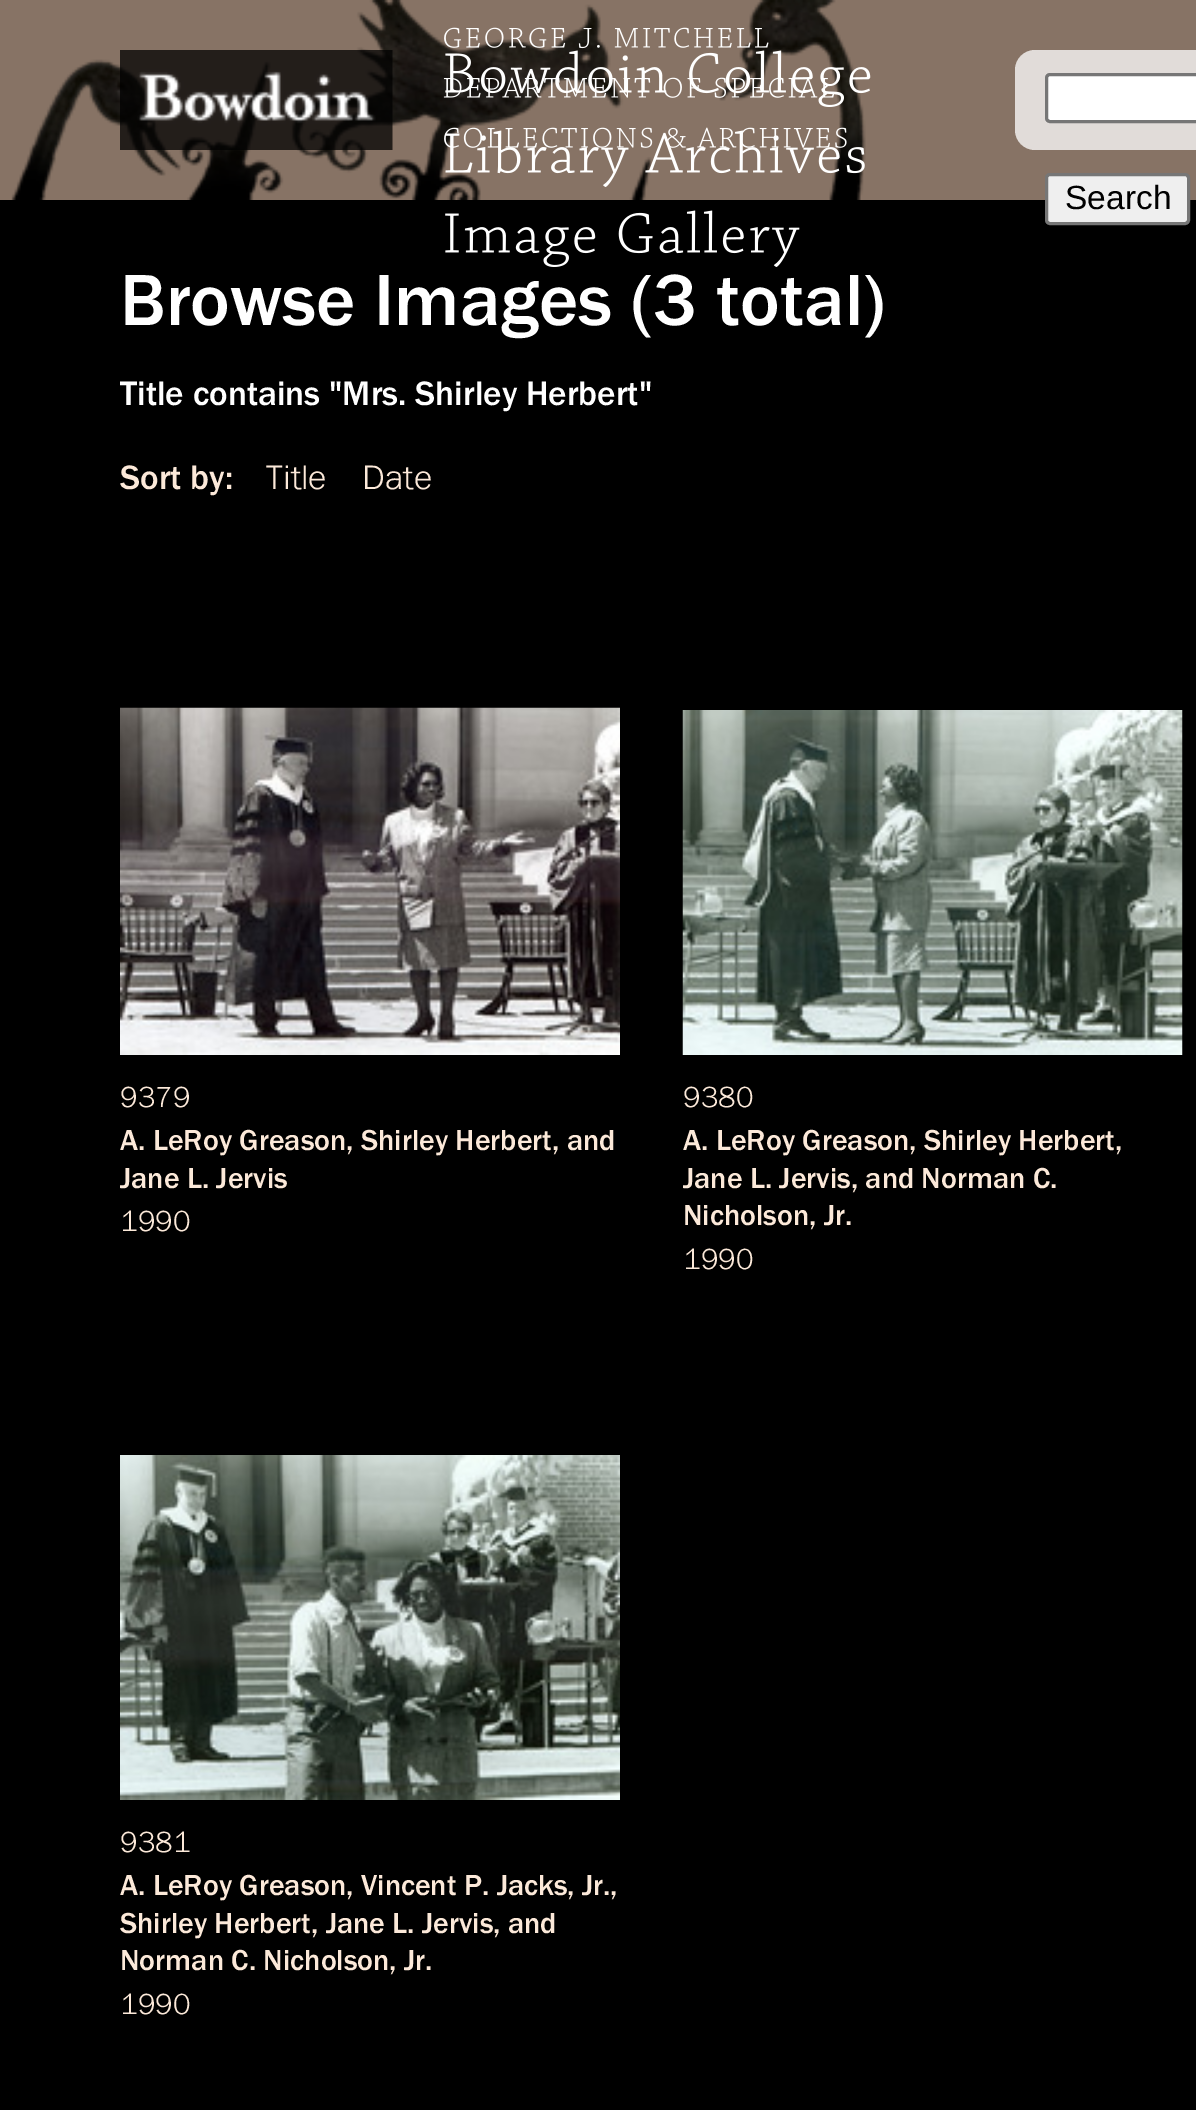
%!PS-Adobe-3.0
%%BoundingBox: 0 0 1196 2110
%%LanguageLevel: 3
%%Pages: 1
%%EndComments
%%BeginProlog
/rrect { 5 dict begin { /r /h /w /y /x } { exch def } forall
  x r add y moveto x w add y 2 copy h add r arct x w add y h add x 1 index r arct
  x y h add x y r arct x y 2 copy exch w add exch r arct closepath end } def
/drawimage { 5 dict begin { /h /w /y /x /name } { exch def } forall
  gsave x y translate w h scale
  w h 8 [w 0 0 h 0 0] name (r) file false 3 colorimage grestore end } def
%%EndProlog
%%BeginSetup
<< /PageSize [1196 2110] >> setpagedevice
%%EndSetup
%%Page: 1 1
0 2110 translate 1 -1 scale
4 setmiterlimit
0 setgray
0 0 1196 2110 rectfill
0.529 0.451 0.396 setrgbcolor
0 0 1196 200 rectfill
(images/1.raw) 11 0 855 200 drawimage
(images/2.raw) 120 50 273 100 drawimage
(images/3.raw) 444 27 325 22 drawimage
(images/6.raw) 445 50 426 57 drawimage
(images/4.raw) 443 77 391 21 drawimage
(images/7.raw) 445 130 420 57 drawimage
(images/5.raw) 444 127 403 21 drawimage
(images/8.raw) 445 210 355 57 drawimage
0.882 0.863 0.851 setrgbcolor
1015 50 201 100 20 rrect fill
1 setgray
1046.5 74.5 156 47 3.5 rrect gsave fill grestore
0.463 setgray
3 setlinewidth
stroke
0.937 setgray
1046.5 174.5 142 49 3.5 rrect gsave fill grestore
0.463 setgray
stroke
(images/9.raw) 120 707 500 348 drawimage
(images/10.raw) 682 710 501 345 drawimage
(images/11.raw) 120 1455 500 345 drawimage
/LiberationSans-Regular [33.5 0 0 -33.5 0 0] selectfont
0 setgray
1065 209 moveto (Search) show
/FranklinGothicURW-Regular [75 0 0 -75 0 0] selectfont
1 setgray
120 325 moveto (Browse Images \(3 total\)) show
/FranklinGothicURW-Regular [35.1 0 0 -35.1 0 0] selectfont
120 405 moveto (Title contains "Mrs. Shirley Herbert") show
0.988 0.914 0.851 setrgbcolor
120 489 moveto (Sort by:) show
/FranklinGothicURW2-Regular [35.1 0 0 -35.1 0 0] selectfont
266 489 moveto (Title) show
362 489 moveto (Date) show
/FranklinGothicURW2-Regular [30 0 0 -30 0 0] selectfont
120 1107 moveto (9379) show
/FranklinGothicURW-Regular [30 0 0 -30 0 0] selectfont
120 1150 moveto (A. LeRoy Greason, Shirley Herbert, and) show
120 1188 moveto (Jane L. Jervis) show
/FranklinGothicURW2-Regular [30 0 0 -30 0 0] selectfont
120 1231 moveto (1990) show
683 1107 moveto (9380) show
/FranklinGothicURW-Regular [30 0 0 -30 0 0] selectfont
683 1150 moveto (A. LeRoy Greason, Shirley Herbert,) show
683 1188 moveto (Jane L. Jervis, and Norman C.) show
683 1225 moveto (Nicholson, Jr.) show
/FranklinGothicURW2-Regular [30 0 0 -30 0 0] selectfont
683 1269 moveto (1990) show
120 1852 moveto (9381) show
/FranklinGothicURW-Regular [30 0 0 -30 0 0] selectfont
120 1895 moveto (A. LeRoy Greason, Vincent P. Jacks, Jr.,) show
120 1933 moveto (Shirley Herbert, Jane L. Jervis, and) show
120 1970 moveto (Norman C. Nicholson, Jr.) show
/FranklinGothicURW2-Regular [30 0 0 -30 0 0] selectfont
120 2014 moveto (1990) show
showpage
%%EOF
